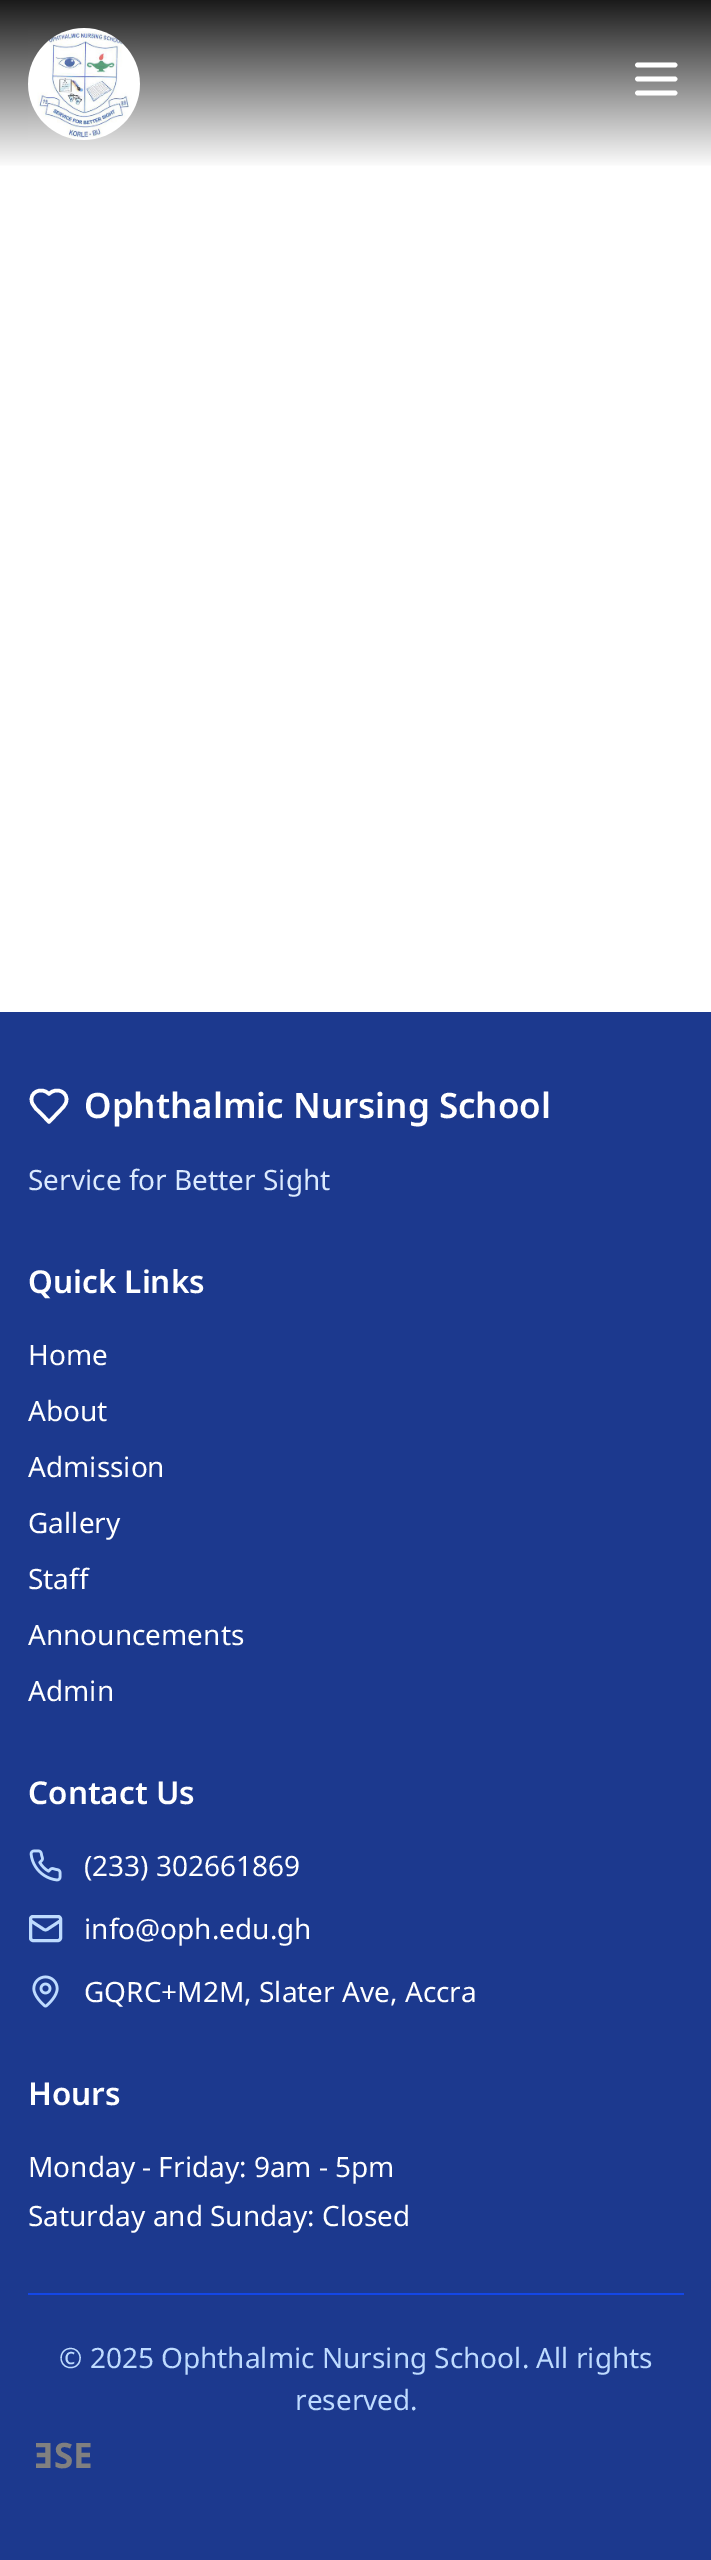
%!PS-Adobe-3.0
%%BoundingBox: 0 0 711 2560
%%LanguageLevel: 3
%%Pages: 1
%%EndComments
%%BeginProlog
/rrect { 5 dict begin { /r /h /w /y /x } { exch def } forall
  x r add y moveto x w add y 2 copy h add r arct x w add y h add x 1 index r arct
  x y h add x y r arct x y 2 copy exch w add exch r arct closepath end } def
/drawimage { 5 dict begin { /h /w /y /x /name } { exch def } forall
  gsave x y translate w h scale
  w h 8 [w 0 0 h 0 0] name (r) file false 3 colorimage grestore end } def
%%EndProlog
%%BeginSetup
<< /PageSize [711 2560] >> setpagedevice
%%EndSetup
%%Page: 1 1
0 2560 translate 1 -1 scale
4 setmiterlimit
1 setgray
0 0 711 2560 rectfill
gsave newpath 0 0 moveto 711 0 lineto 711 166 lineto 0 166 lineto closepath clip newpath
<< /ShadingType 2 /ColorSpace /DeviceRGB /Coords [356 0 356 168] /Extend [true true] /Function << /FunctionType 2 /Domain [0 1] /C0 [0.102 0.102 0.102] /C1 [1 1 1] /N 1 >> >> shfill grestore
(images/1.raw) 28 28 112 112 drawimage
4.7 setlinewidth
1 setlinecap
1 setlinejoin
newpath 637.5 79 moveto 675 79 lineto 637.5 65 moveto 675 65 lineto 637.5 93 moveto 675 93 lineto stroke
0.11 0.224 0.557 setrgbcolor
0 1012 711 1548 rectfill
1 setgray
3.5 setlinewidth
newpath 61 1109.5 moveto 63 1107.5 65 1105.5 66 1102.5 curveto 69.5 1092.5 56.5 1086 49 1094 curveto 41.5 1086 28.5 1092.5 32 1102.5 curveto 33.5 1107 37.5 1110.5 41 1113.5 curveto 49 1122 lineto closepath stroke
(images/2.raw) 29 1849 33 33 drawimage
0.745 0.859 1 setrgbcolor
3 setlinewidth
0 setlinecap
0 setlinejoin
30.5 1916.5 30 24 2.5 rrect stroke
2.9 setlinewidth
1 setlinecap
1 setlinejoin
newpath 60 1921 moveto 47 1929.5 lineto 46 1930 45 1930 44 1929.5 curveto 31 1921 lineto stroke
(images/3.raw) 32 1975 27 33 drawimage
0.078 0.278 0.902 setrgbcolor
28 2293 656 2 rectfill
/NotoSans-SemiBold [35 0 0 -35 0 0] selectfont
1 setgray
84 1118 moveto (Ophthalmic Nursing School) show
/NotoSans-Regular [28 0 0 -28 0 0] selectfont
0.859 0.918 0.996 setrgbcolor
28 1190 moveto (Service for Better Sight) show
/NotoSans-SemiBold [31.5 0 0 -31.5 0 0] selectfont
1 setgray
28 1293 moveto (Quick Links) show
/NotoSans-Regular [28 0 0 -28 0 0] selectfont
28 1365 moveto (Home) show
28 1421 moveto (About) show
28 1477 moveto (Admission) show
28 1533 moveto (Gallery) show
28 1589 moveto (Staff) show
28 1645 moveto (Announcements) show
28 1701 moveto (Admin) show
/NotoSans-SemiBold [31.5 0 0 -31.5 0 0] selectfont
28 1804 moveto (Contact Us) show
/NotoSans-Regular [28 0 0 -28 0 0] selectfont
84 1876 moveto (\(233\) 302661869) show
84 1939 moveto (info@oph.edu.gh) show
84 2002 moveto (GQRC+M2M, Slater Ave, Accra) show
/NotoSans-SemiBold [31.5 0 0 -31.5 0 0] selectfont
28 2105 moveto (Hours) show
/NotoSans-Regular [28 0 0 -28 0 0] selectfont
28 2177 moveto (Monday - Friday: 9am - 5pm) show
28 2226 moveto (Saturday and Sunday: Closed) show
0.745 0.859 1 setrgbcolor
59 2368 moveto (© 2025 Ophthalmic Nursing School. All rights) show
295 2410 moveto (reserved.) show
/NotoSans-Bold [35 0 0 -35 0 0] selectfont
0.502 setgray
34 2468 moveto (ƎSE) show
showpage
%%EOF
